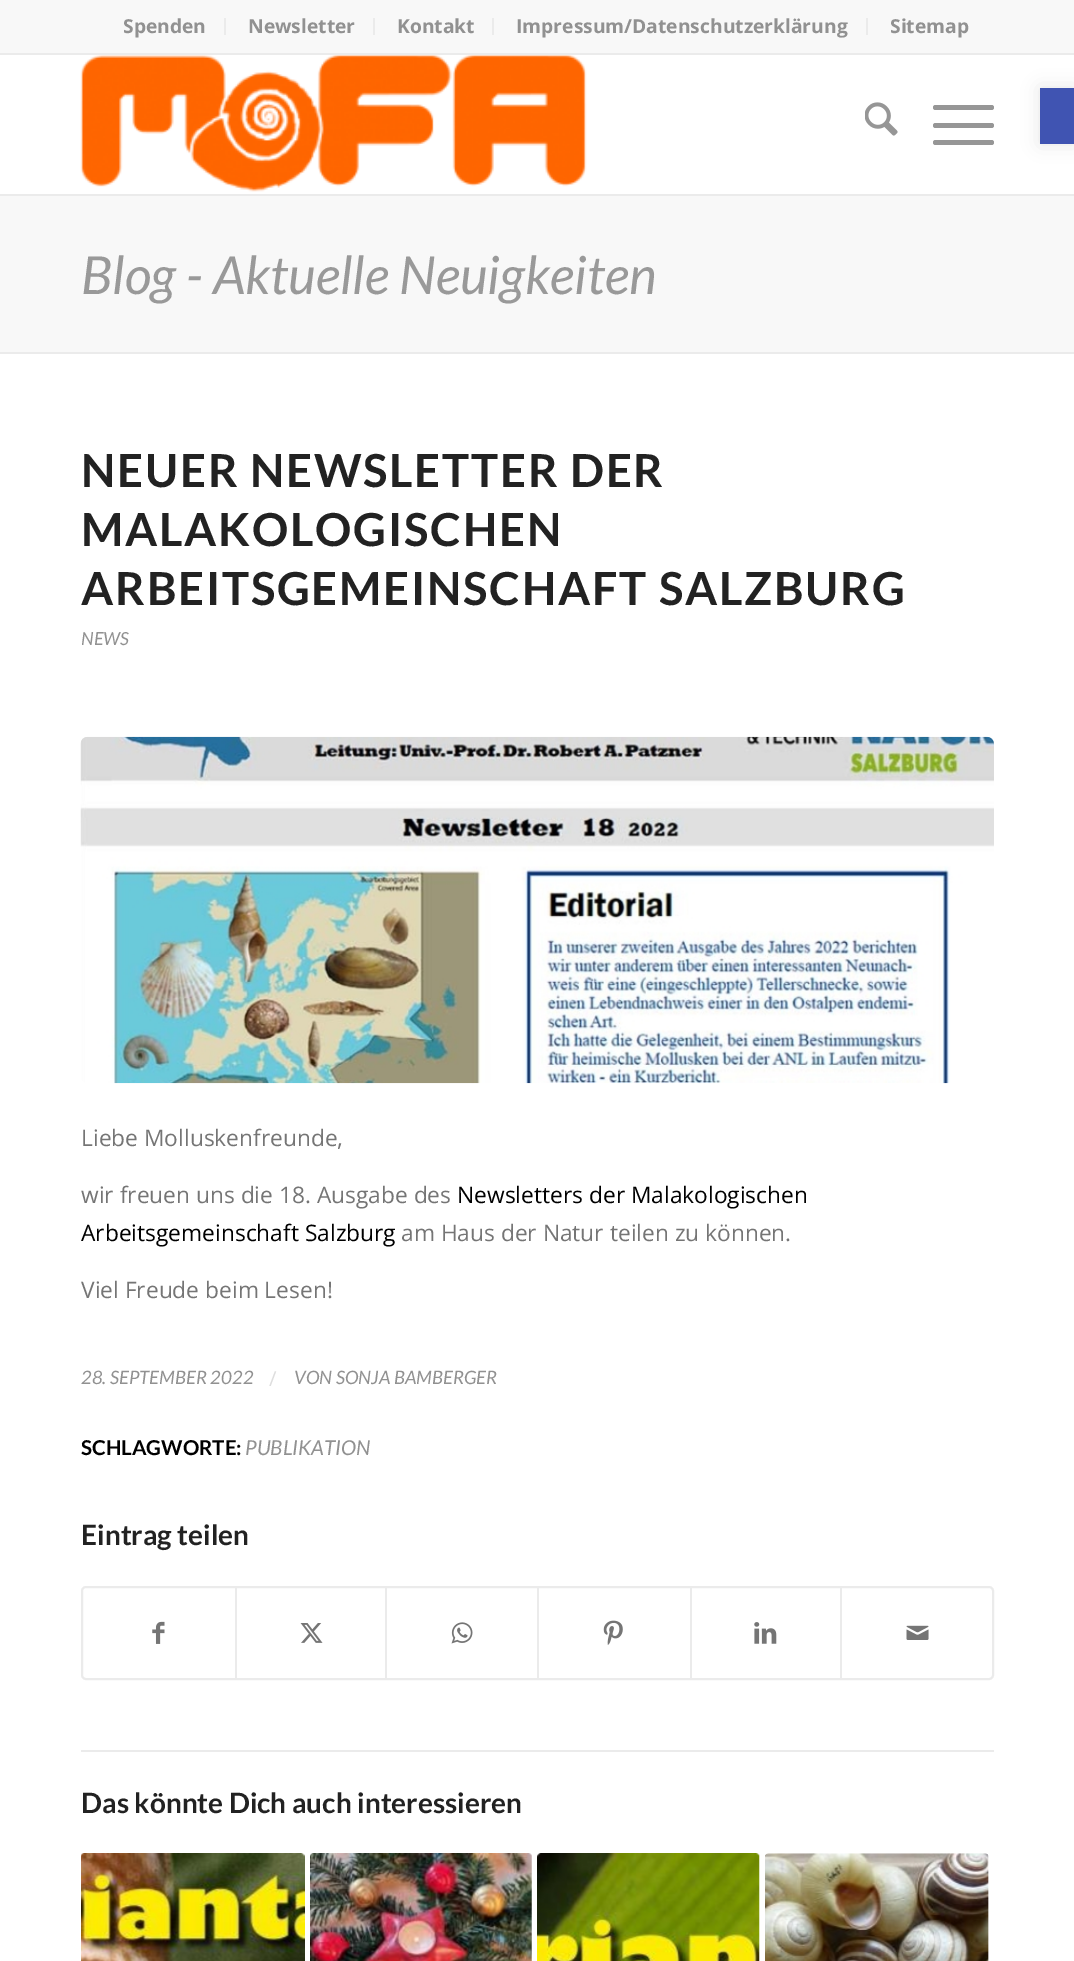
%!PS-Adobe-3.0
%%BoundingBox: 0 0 1074 1961
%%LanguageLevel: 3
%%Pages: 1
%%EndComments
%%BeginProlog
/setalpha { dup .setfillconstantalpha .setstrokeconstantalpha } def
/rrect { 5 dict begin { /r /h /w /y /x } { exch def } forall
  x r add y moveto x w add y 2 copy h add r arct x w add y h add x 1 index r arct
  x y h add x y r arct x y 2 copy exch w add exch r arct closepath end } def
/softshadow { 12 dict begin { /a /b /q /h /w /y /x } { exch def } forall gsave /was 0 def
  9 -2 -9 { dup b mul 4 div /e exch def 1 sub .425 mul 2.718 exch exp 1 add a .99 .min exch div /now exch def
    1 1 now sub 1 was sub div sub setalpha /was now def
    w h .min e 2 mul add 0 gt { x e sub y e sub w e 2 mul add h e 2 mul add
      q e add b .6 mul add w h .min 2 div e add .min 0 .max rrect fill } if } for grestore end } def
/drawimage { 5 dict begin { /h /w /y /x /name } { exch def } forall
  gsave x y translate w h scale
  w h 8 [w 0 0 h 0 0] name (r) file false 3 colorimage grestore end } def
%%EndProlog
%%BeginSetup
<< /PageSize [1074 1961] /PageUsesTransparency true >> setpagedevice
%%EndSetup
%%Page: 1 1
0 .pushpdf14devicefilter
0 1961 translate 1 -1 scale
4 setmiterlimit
1 setgray
0 0 1074 1961 rectfill
0.973 setgray
0 0 1074 53 rectfill
0.922 setgray
0 53 1074 2 rectfill
224 18 2 17 rectfill
373 18 2 17 rectfill
492 18 2 17 rectfill
866 18 2 17 rectfill
0 194 1074 2 rectfill
(images/1.raw) 80 55 507 137 drawimage
(images/2.raw) 865 102 33 34 drawimage
0.588 setgray
933 123 61 5 2.5 rrect fill
933 105 61 5 2.5 rrect fill
933 140 61 5 2.5 rrect fill
0.973 setgray
0 196 1074 156 rectfill
0.922 setgray
0 352 1074 2 rectfill
(images/3.raw) 80 736 914 348 drawimage
2 setlinewidth
82 1587 911 92 4 rrect stroke
(images/4.raw) 152 1621 13 23 drawimage
235 1587 2 91 rectfill
(images/5.raw) 300 1623 23 20 drawimage
385 1587 2 91 rectfill
(images/6.raw) 451 1622 22 22 drawimage
537 1587 2 91 rectfill
(images/7.raw) 603 1620 20 25 drawimage
690 1587 2 91 rectfill
(images/8.raw) 754 1622 23 22 drawimage
840 1587 2 91 rectfill
(images/9.raw) 906 1625 23 15 drawimage
81 1750 913 2 rectfill
(images/10.raw) 81 1853 224 108 drawimage
(images/11.raw) 310 1853 222 108 drawimage
(images/12.raw) 537 1853 223 108 drawimage
(images/13.raw) 765 1853 224 108 drawimage
0 setgray
1040 88 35 56 0 9 0.1 softshadow
0.251 0.329 0.698 setrgbcolor
1040 88 34 56 rectfill
/OpenSans-Bold [19.25 0 0 -19.25 0 0] selectfont
0.569 setgray
123 33 moveto (Spenden) show
248 33 moveto (Newsletter) show
397 33 moveto (Kontakt) show
516 33 moveto (Impressum/Datenschutzerklärung) show
890 33 moveto (Sitemap) show
/Lato-Italic [52.5 0 0 -52.5 0 0] selectfont
0.6 setgray
81 294 moveto (Blog - Aktuelle Neuigkeiten) show
/Lato-Bold [45.5 0 0 -45.5 0 0] selectfont
0.133 setgray
81 487 moveto 1.75 0 (NEUER NEWSLETTER DER) ashow
81 546 moveto 1.75 0 (MALAKOLOGISCHEN) ashow
81 605 moveto 1.75 0 (ARBEITSGEMEINSCHAFT SALZBURG) ashow
/Lato-Italic [18 0 0 -18 0 0] selectfont
0.569 setgray
81 645 moveto (NEWS) show
/OpenSans-Regular [22.75 0 0 -22.75 0 0] selectfont
0.459 setgray
81 1146 moveto (Liebe Molluskenfreunde,) show
81 1203 moveto (wir freuen uns die 18. Ausgabe des) show
0 setgray
457 1203 moveto (Newsletters der Malakologischen) show
81 1241 moveto (Arbeitsgemeinschaft Salzburg) show
0.459 setgray
401 1241 moveto (am Haus der Natur teilen zu können.) show
81 1298 moveto (Viel Freude beim Lesen!) show
/Lato-Italic [18.5 0 0 -18.5 0 0] selectfont
0.569 setgray
81 1384 moveto (28. SEPTEMBER 2022) show
/OpenSans-Regular [20.5 0 0 -20.5 0 0] selectfont
0.871 setgray
269 1386 moveto (/) show
/Lato-Italic [18.5 0 0 -18.5 0 0] selectfont
0.569 setgray
294 1384 moveto (VON SONJA BAMBERGER) show
/Lato-Bold [20.5 0 0 -20.5 0 0] selectfont
0 setgray
81 1455 moveto (SCHLAGWORTE:) show
/Lato-Italic [20.5 0 0 -20.5 0 0] selectfont
0.569 setgray
245 1455 moveto (PUBLIKATION) show
/Lato-Bold [28 0 0 -28 0 0] selectfont
0.133 setgray
81 1545 moveto (Eintrag teilen) show
81 1813 moveto (Das könnte Dich auch interessieren) show
.poppdf14devicefilter showpage
%%EOF
